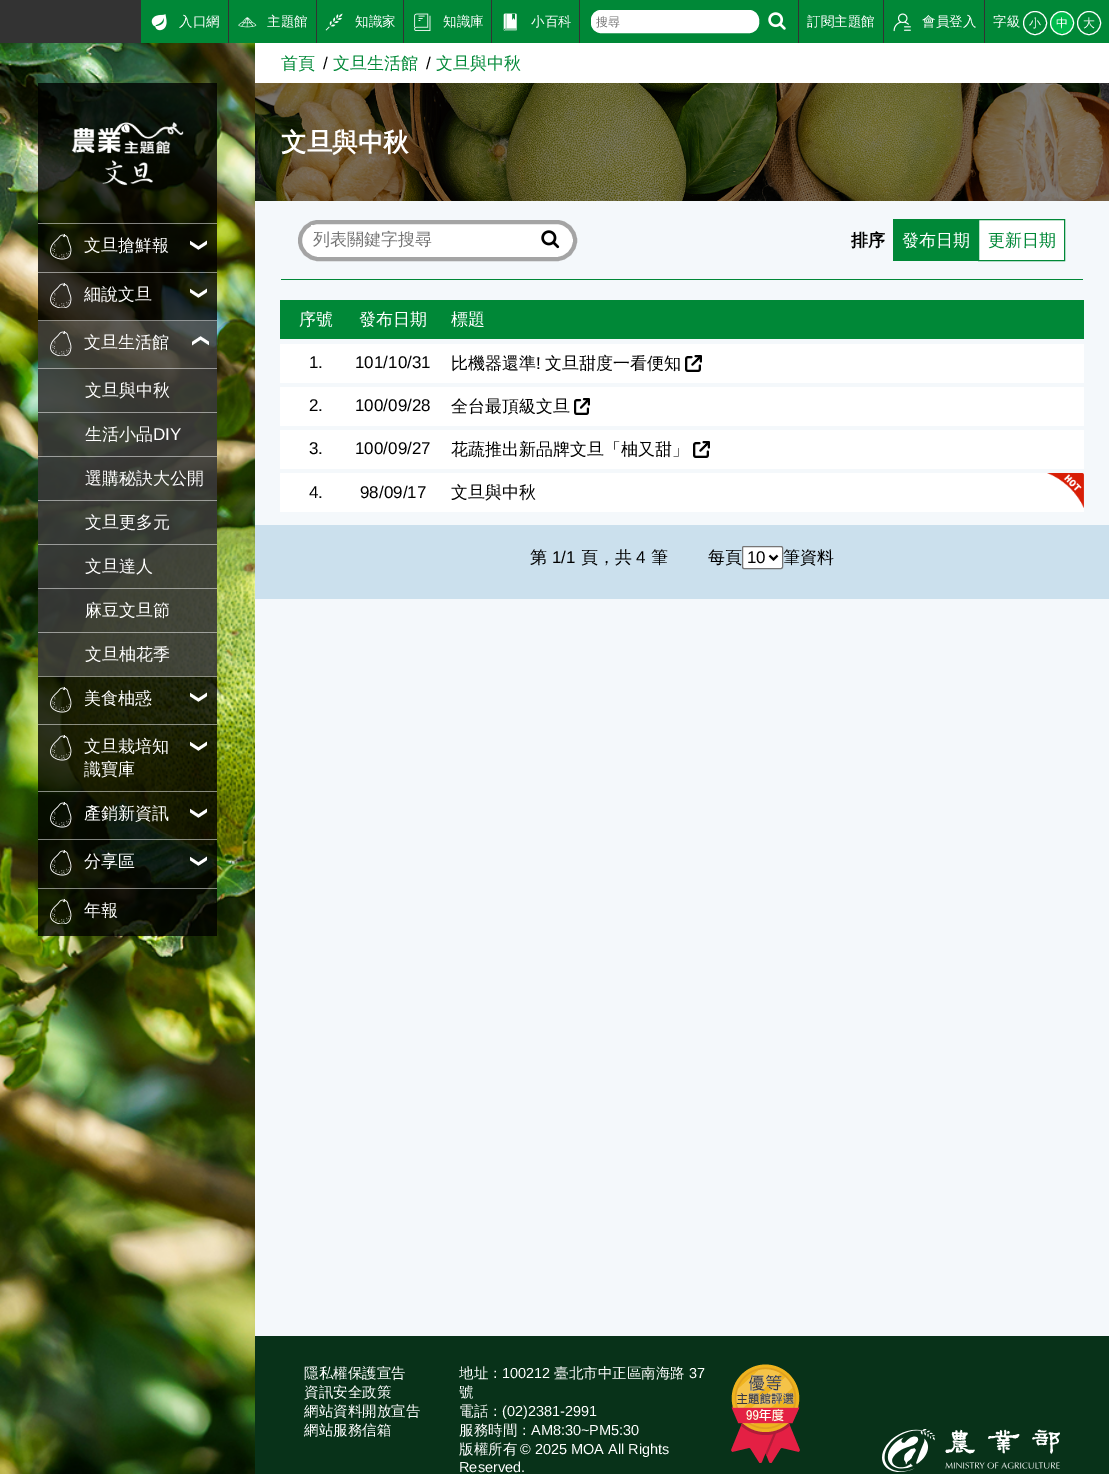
%!PS-Adobe-3.0
%%BoundingBox: 0 0 1109 1474
%%LanguageLevel: 3
%%Pages: 1
%%EndComments
%%BeginProlog
/setalpha { dup .setfillconstantalpha .setstrokeconstantalpha } def
/rrect { 5 dict begin { /r /h /w /y /x } { exch def } forall
  x r add y moveto x w add y 2 copy h add r arct x w add y h add x 1 index r arct
  x y h add x y r arct x y 2 copy exch w add exch r arct closepath end } def
/drawimage { 5 dict begin { /h /w /y /x /name } { exch def } forall
  gsave x y translate w h scale
  w h 8 [w 0 0 h 0 0] name (r) file false 3 colorimage grestore end } def
%%EndProlog
%%BeginSetup
<< /PageSize [1109 1474] /PageUsesTransparency true >> setpagedevice
%%EndSetup
%%Page: 1 1
0 .pushpdf14devicefilter
0 1474 translate 1 -1 scale
4 setmiterlimit
1 setgray
0 0 1109 1474 rectfill
(images/1.raw) 0 43 255 1431 drawimage
0.2 setgray
0 0 985 43 rectfill
0 0.533 0.216 setrgbcolor
141 0 87 43 rectfill
(images/2.raw) 151 14 16 17 drawimage
229 0 87 43 rectfill
(images/3.raw) 238 17 19 11 drawimage
317 0 86 43 rectfill
(images/4.raw) 325 13 18 18 drawimage
404 0 87 43 rectfill
(images/5.raw) 414 13 17 18 drawimage
492 0 87 43 rectfill
(images/6.raw) 503 13 14 18 drawimage
580 0 218 43 rectfill
1 setgray
591.5 10.5 167 22 9.5 rrect gsave fill grestore
stroke
(images/7.raw) 768 12 18 18 drawimage
0 0.533 0.216 setrgbcolor
799 0 84 43 rectfill
884 0 100 43 rectfill
(images/8.raw) 893 13 18 19 drawimage
985 0 124 43 rectfill
1 setgray
newpath 1035 23 11.5 0 360 arc closepath stroke
0 0.733 0.298 setrgbcolor
newpath 1062 23 11.5 0 360 arc closepath gsave fill grestore
1 setgray
stroke
newpath 1089 23 11.5 0 360 arc closepath stroke
0.8 setalpha
0 setgray
38 83 179 853 rectfill
1 setalpha
(images/9.raw) 71 122 113 64 drawimage
0.5 setalpha
1 setgray
38 223 179 1 rectfill
1 setalpha
(images/10.raw) 50 234 22 26 drawimage
0.5 setalpha
38 272 179 1 rectfill
1 setalpha
(images/11.raw) 50 283 22 25 drawimage
0.5 setalpha
38 320 179 1 rectfill
0.2 setalpha
38 321 179 47 rectfill
1 setalpha
(images/12.raw) 50 331 22 25 drawimage
0.5 setalpha
0.392 setgray
38 368 179 308 rectfill
1 setgray
38 368 179 1 rectfill
38 412 179 1 rectfill
38 456 179 1 rectfill
38 500 179 1 rectfill
38 544 179 1 rectfill
38 588 179 1 rectfill
38 632 179 1 rectfill
38 676 179 1 rectfill
1 setalpha
(images/13.raw) 50 687 22 26 drawimage
0.5 setalpha
38 724 179 1 rectfill
1 setalpha
(images/14.raw) 50 735 22 26 drawimage
0.5 setalpha
38 791 179 1 rectfill
1 setalpha
(images/15.raw) 50 802 22 26 drawimage
0.5 setalpha
38 839 179 1 rectfill
1 setalpha
(images/16.raw) 50 850 22 26 drawimage
0.5 setalpha
38 888 179 1 rectfill
1 setalpha
(images/17.raw) 50 899 22 25 drawimage
0.957 0.973 0.984 setrgbcolor
255 201 854 1135 rectfill
(images/18.raw) 255 83 854 118 drawimage
0 0.533 0.216 setrgbcolor
281 279 802 1 rectfill
1 setgray
300 222 275 37 18.5 rrect gsave fill grestore
0.643 setgray
4 setlinewidth
stroke
1 setgray
311 225 2 1 rectfill
(images/19.raw) 541 230 19 19 drawimage
0 0.533 0.216 setrgbcolor
893 219 85 42 rectfill
1 setgray
newpath 978.5 219.5 moveto 1064.5 219.5 lineto 1064.5 260.5 lineto 978.5 260.5 lineto closepath gsave fill grestore
0 0.533 0.216 setrgbcolor
1 setlinewidth
stroke
280 300 804 39 rectfill
1 setgray
280 344 804 39 rectfill
(images/20.raw) 685 355 17 17 drawimage
280 387 804 39 rectfill
(images/21.raw) 574 398 16 17 drawimage
280 430 804 39 rectfill
(images/22.raw) 693 441 17 17 drawimage
280 473 804 39 rectfill
(images/23.raw) 1047 473 37 35 drawimage
0.796 0.878 0.929 setrgbcolor
255 525 854 74 rectfill
1 setgray
742.5 546.5 40 22 1.5 rrect gsave fill grestore
0.463 setgray
stroke
0 setgray
2 setlinewidth
newpath 769.5 555.5 moveto 773.5 559.5 lineto 777.5 555.5 lineto stroke
0.031 0.196 0.098 setrgbcolor
255 1336 854 138 rectfill
(images/24.raw) 731 1364 69 99 drawimage
(images/25.raw) 882 1429 178 43 drawimage
/WenQuanYiZenHei-Medium [13.5 0 0 -13.5 0 0] selectfont
1 setgray
179 26 moveto (入口網) show
267 26 moveto (主題館) show
355 26 moveto (知識家) show
443 26 moveto (知識庫) show
531 26 moveto (小百科) show
/WenQuanYiZenHei-Medium [12 0 0 -12 0 0] selectfont
0.459 setgray
596 26 moveto (搜尋) show
/WenQuanYiZenHei-Medium [13.5 0 0 -13.5 0 0] selectfont
1 setgray
807 26 moveto (訂閱主題館) show
922 26 moveto (會員登入) show
993 26 moveto (字級) show
/WenQuanYiZenHei-Medium [12 0 0 -12 0 0] selectfont
1029 27 moveto (小) show
1056 27 moveto (中) show
1083 27 moveto (大) show
/WenQuanYiZenHei-Medium [17 0 0 -17 0 0] selectfont
84 251 moveto (文旦搶鮮報) show
/DejaVuSans-Regular [17 0 0 -17 0 0] selectfont
gsave 194 238 translate 90 rotate 0 0 moveto (❯) show grestore
/WenQuanYiZenHei-Medium [17 0 0 -17 0 0] selectfont
84 300 moveto (細說文旦) show
/DejaVuSans-Regular [17 0 0 -17 0 0] selectfont
gsave 194 286 translate 90 rotate 0 0 moveto (❯) show grestore
/WenQuanYiZenHei-Medium [17 0 0 -17 0 0] selectfont
84 348 moveto (文旦生活館) show
/DejaVuSans-Regular [17 0 0 -17 0 0] selectfont
gsave 205 348 translate -90 rotate 0 0 moveto (❯) show grestore
/WenQuanYiZenHei-Medium [17 0 0 -17 0 0] selectfont
85 396 moveto (文旦與中秋) show
85 440 moveto (生活小品) show
/LiberationSans-Regular [17 0 0 -17 0 0] selectfont
153 440 moveto (DIY) show
/WenQuanYiZenHei-Medium [17 0 0 -17 0 0] selectfont
85 484 moveto (選購秘訣大公開) show
85 528 moveto (文旦更多元) show
85 572 moveto (文旦達人) show
85 616 moveto (麻豆文旦節) show
85 660 moveto (文旦柚花季) show
84 704 moveto (美食柚惑) show
/DejaVuSans-Regular [17 0 0 -17 0 0] selectfont
gsave 194 690 translate 90 rotate 0 0 moveto (❯) show grestore
/WenQuanYiZenHei-Medium [17 0 0 -17 0 0] selectfont
84 752 moveto (文旦栽培知) show
84 775 moveto (識寶庫) show
/DejaVuSans-Regular [17 0 0 -17 0 0] selectfont
gsave 194 739 translate 90 rotate 0 0 moveto (❯) show grestore
/WenQuanYiZenHei-Medium [17 0 0 -17 0 0] selectfont
84 819 moveto (產銷新資訊) show
/DejaVuSans-Regular [17 0 0 -17 0 0] selectfont
gsave 194 806 translate 90 rotate 0 0 moveto (❯) show grestore
/WenQuanYiZenHei-Medium [17 0 0 -17 0 0] selectfont
84 867 moveto (分享區) show
/DejaVuSans-Regular [17 0 0 -17 0 0] selectfont
gsave 194 854 translate 90 rotate 0 0 moveto (❯) show grestore
/WenQuanYiZenHei-Medium [17 0 0 -17 0 0] selectfont
84 916 moveto (年報) show
0 0.533 0.216 setrgbcolor
281 69 moveto (首頁) show
/LiberationSans-Regular [17 0 0 -17 0 0] selectfont
0 setgray
323 69 moveto (/) show
/WenQuanYiZenHei-Medium [17 0 0 -17 0 0] selectfont
0 0.533 0.216 setrgbcolor
333 69 moveto (文旦生活館) show
/LiberationSans-Regular [17 0 0 -17 0 0] selectfont
0 setgray
426 69 moveto (/) show
/WenQuanYiZenHei-Medium [17 0 0 -17 0 0] selectfont
0 0.533 0.216 setrgbcolor
436 69 moveto (文旦與中秋) show
/WenQuanYiZenHei-Bold [25.5 0 0 -25.5 0 0] selectfont
1 setgray
281 151 moveto (文旦與中秋) show
/WenQuanYiZenHei-Medium [17 0 0 -17 0 0] selectfont
0.459 setgray
313 245 moveto (列表關鍵字搜尋) show
/WenQuanYiZenHei-Bold [17 0 0 -17 0 0] selectfont
0 setgray
851 246 moveto (排序) show
/WenQuanYiZenHei-Medium [17 0 0 -17 0 0] selectfont
1 setgray
902 246 moveto (發布日期) show
0 0.533 0.216 setrgbcolor
988 246 moveto (更新日期) show
1 setgray
299 325 moveto (序號) show
359 325 moveto (發布日期) show
451 325 moveto (標題) show
/LiberationSans-Regular [17 0 0 -17 0 0] selectfont
0 setgray
309 368 moveto (1.) show
355 368 moveto (101/10/31) show
/WenQuanYiZenHei-Medium [17 0 0 -17 0 0] selectfont
451 369 moveto (比機器還準) show
/LiberationSans-Regular [17 0 0 -17 0 0] selectfont
536 369 moveto (!) show
/WenQuanYiZenHei-Medium [17 0 0 -17 0 0] selectfont
545 369 moveto (文旦甜度一看便知) show
/LiberationSans-Regular [17 0 0 -17 0 0] selectfont
309 411 moveto (2.) show
355 411 moveto (100/09/28) show
/WenQuanYiZenHei-Medium [17 0 0 -17 0 0] selectfont
451 412 moveto (全台最頂級文旦) show
/LiberationSans-Regular [17 0 0 -17 0 0] selectfont
309 454 moveto (3.) show
355 454 moveto (100/09/27) show
/WenQuanYiZenHei-Medium [17 0 0 -17 0 0] selectfont
451 455 moveto (花蔬推出新品牌文旦「柚又甜」) show
/LiberationSans-Regular [17 0 0 -17 0 0] selectfont
309 498 moveto (4.) show
360 498 moveto (98/09/17) show
/WenQuanYiZenHei-Medium [17 0 0 -17 0 0] selectfont
451 498 moveto (文旦與中秋) show
530 563 moveto (第) show
/LiberationSans-Regular [17 0 0 -17 0 0] selectfont
552 563 moveto (1/1) show
/WenQuanYiZenHei-Medium [17 0 0 -17 0 0] selectfont
581 563 moveto (頁，共) show
/LiberationSans-Regular [17 0 0 -17 0 0] selectfont
636 563 moveto (4) show
/WenQuanYiZenHei-Medium [17 0 0 -17 0 0] selectfont
651 563 moveto (筆) show
708 563 moveto (每頁) show
/LiberationSans-Regular [17 0 0 -17 0 0] selectfont
747 563 moveto (10) show
/WenQuanYiZenHei-Medium [17 0 0 -17 0 0] selectfont
783 563 moveto (筆資料) show
/WenQuanYiZenHei-Medium [14.5 0 0 -14.5 0 0] selectfont
1 setgray
304 1378 moveto (隱私權保護宣告) show
304 1397 moveto (資訊安全政策) show
304 1416 moveto (網站資料開放宣告) show
304 1435 moveto (網站服務信箱) show
459 1378 moveto (地址：) show
/LiberationSans-Regular [14.5 0 0 -14.5 0 0] selectfont
502 1378 moveto (100212) show
/WenQuanYiZenHei-Medium [14.5 0 0 -14.5 0 0] selectfont
554 1378 moveto (臺北市中正區南海路) show
/LiberationSans-Regular [14.5 0 0 -14.5 0 0] selectfont
689 1378 moveto (37) show
/WenQuanYiZenHei-Medium [14.5 0 0 -14.5 0 0] selectfont
459 1397 moveto (號) show
459 1416 moveto (電話：) show
/LiberationSans-Regular [14.5 0 0 -14.5 0 0] selectfont
502 1416 moveto (\(02\)2381-2991) show
/WenQuanYiZenHei-Medium [14.5 0 0 -14.5 0 0] selectfont
459 1435 moveto (服務時間：) show
/LiberationSans-Regular [14.5 0 0 -14.5 0 0] selectfont
531 1435 moveto (AM8:30~PM5:30) show
/WenQuanYiZenHei-Medium [14.5 0 0 -14.5 0 0] selectfont
459 1454 moveto (版權所有) show
/LiberationSans-Regular [14.5 0 0 -14.5 0 0] selectfont
520 1454 moveto (© 2025 MOA All Rights) show
459 1472 moveto (Reserved.) show
.poppdf14devicefilter showpage
%%EOF
